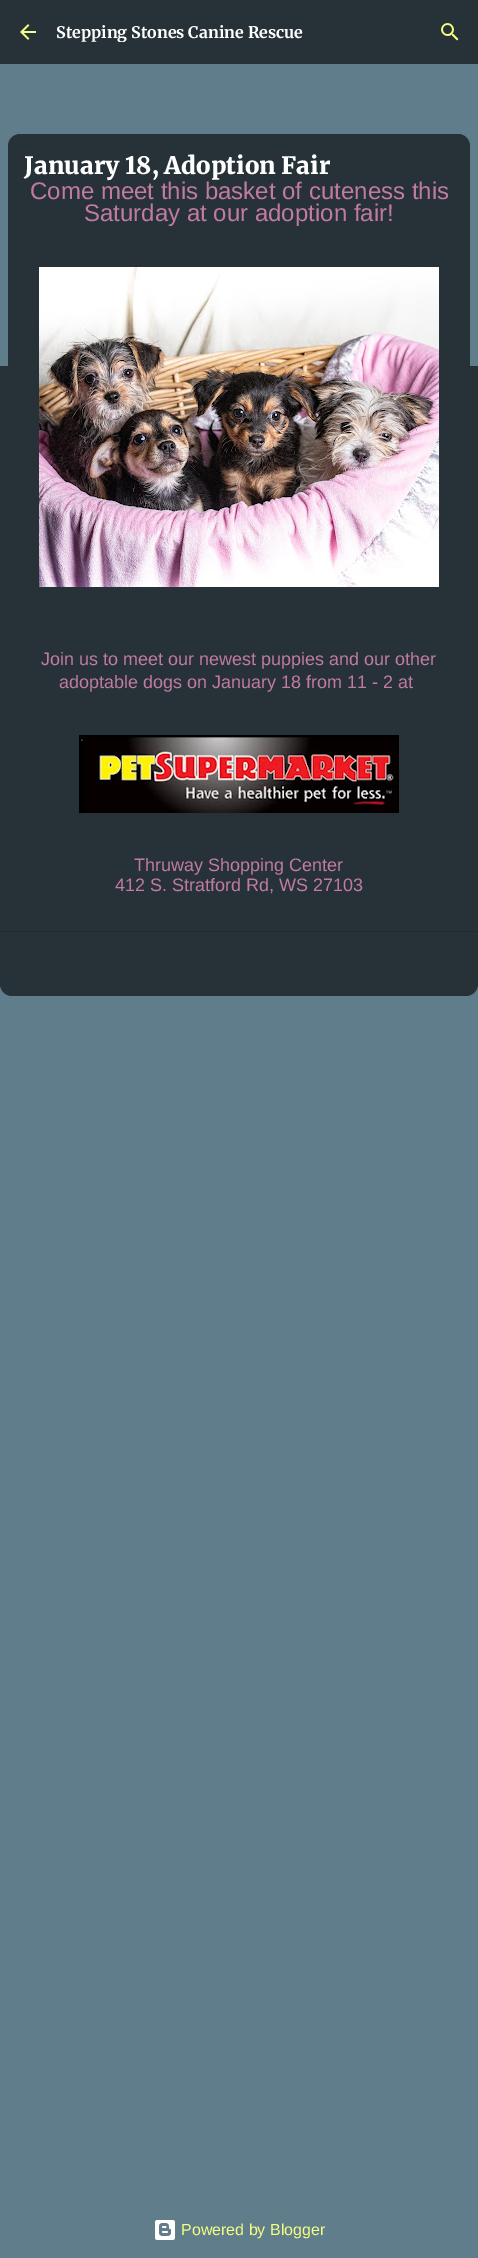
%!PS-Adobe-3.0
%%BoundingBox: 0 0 478 2258
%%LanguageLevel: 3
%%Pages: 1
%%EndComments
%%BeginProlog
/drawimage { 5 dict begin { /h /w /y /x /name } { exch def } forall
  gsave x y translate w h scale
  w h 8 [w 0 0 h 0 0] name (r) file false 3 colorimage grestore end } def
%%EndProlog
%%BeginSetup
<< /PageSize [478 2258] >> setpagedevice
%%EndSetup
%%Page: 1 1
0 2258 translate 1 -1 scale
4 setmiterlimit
0.376 0.49 0.545 setrgbcolor
0 0 478 2258 rectfill
0.149 0.196 0.22 setrgbcolor
0 0 478 64 rectfill
(images/1.raw) 20 24 16 16 drawimage
(images/2.raw) 441 23 18 18 drawimage
0 366 478 565 rectfill
newpath 20 134 moveto 458 134 lineto 464.5 134 470 139.5 470 146 curveto 470 931 lineto 8 931 lineto 8 146 lineto 8 139.5 13.5 134 20 134 curveto closepath fill
(images/3.raw) 39 267 400 320 drawimage
(images/4.raw) 79 735 320 78 drawimage
newpath 0 931 moveto 478 931 lineto 478 984 lineto 478 990.5 472.5 996 466 996 curveto 12 996 lineto 5.5 996 0 990.5 0 984 curveto closepath fill
0.129 0.173 0.192 setrgbcolor
0 931 478 1 rectfill
(images/5.raw) 155 2220 20 20 drawimage
gsave
56 22 366 20 rectclip
/Merriweather-Bold [16 0 0 -16 0 0] selectfont
1 setgray
56 38 moveto (Stepping Stones Canine Rescue) show
grestore
/Merriweather-Black [24 0 0 -24 0 0] selectfont
1 setgray
24 174 moveto (January 18, Adoption Fair) show
/LiberationSans-Regular [24 0 0 -24 0 0] selectfont
0.761 0.482 0.627 setrgbcolor
30 199 moveto (Come meet this basket of cuteness this) show
84 221 moveto (Saturday at our adoption fair!) show
/LiberationSans-Regular [18 0 0 -18 0 0] selectfont
41 665 moveto (Join us to meet our newest puppies and our other) show
59 688 moveto (adoptable dogs on January 18 from 11 - 2 at) show
134 871 moveto (Thruway Shopping Center) show
115 891 moveto (412 S. Stratford Rd, WS 27103) show
/LiberationSans-Regular [16 0 0 -16 0 0] selectfont
0.957 1 0.506 setrgbcolor
181 2235 moveto (Powered by Blogger) show
showpage
%%EOF
